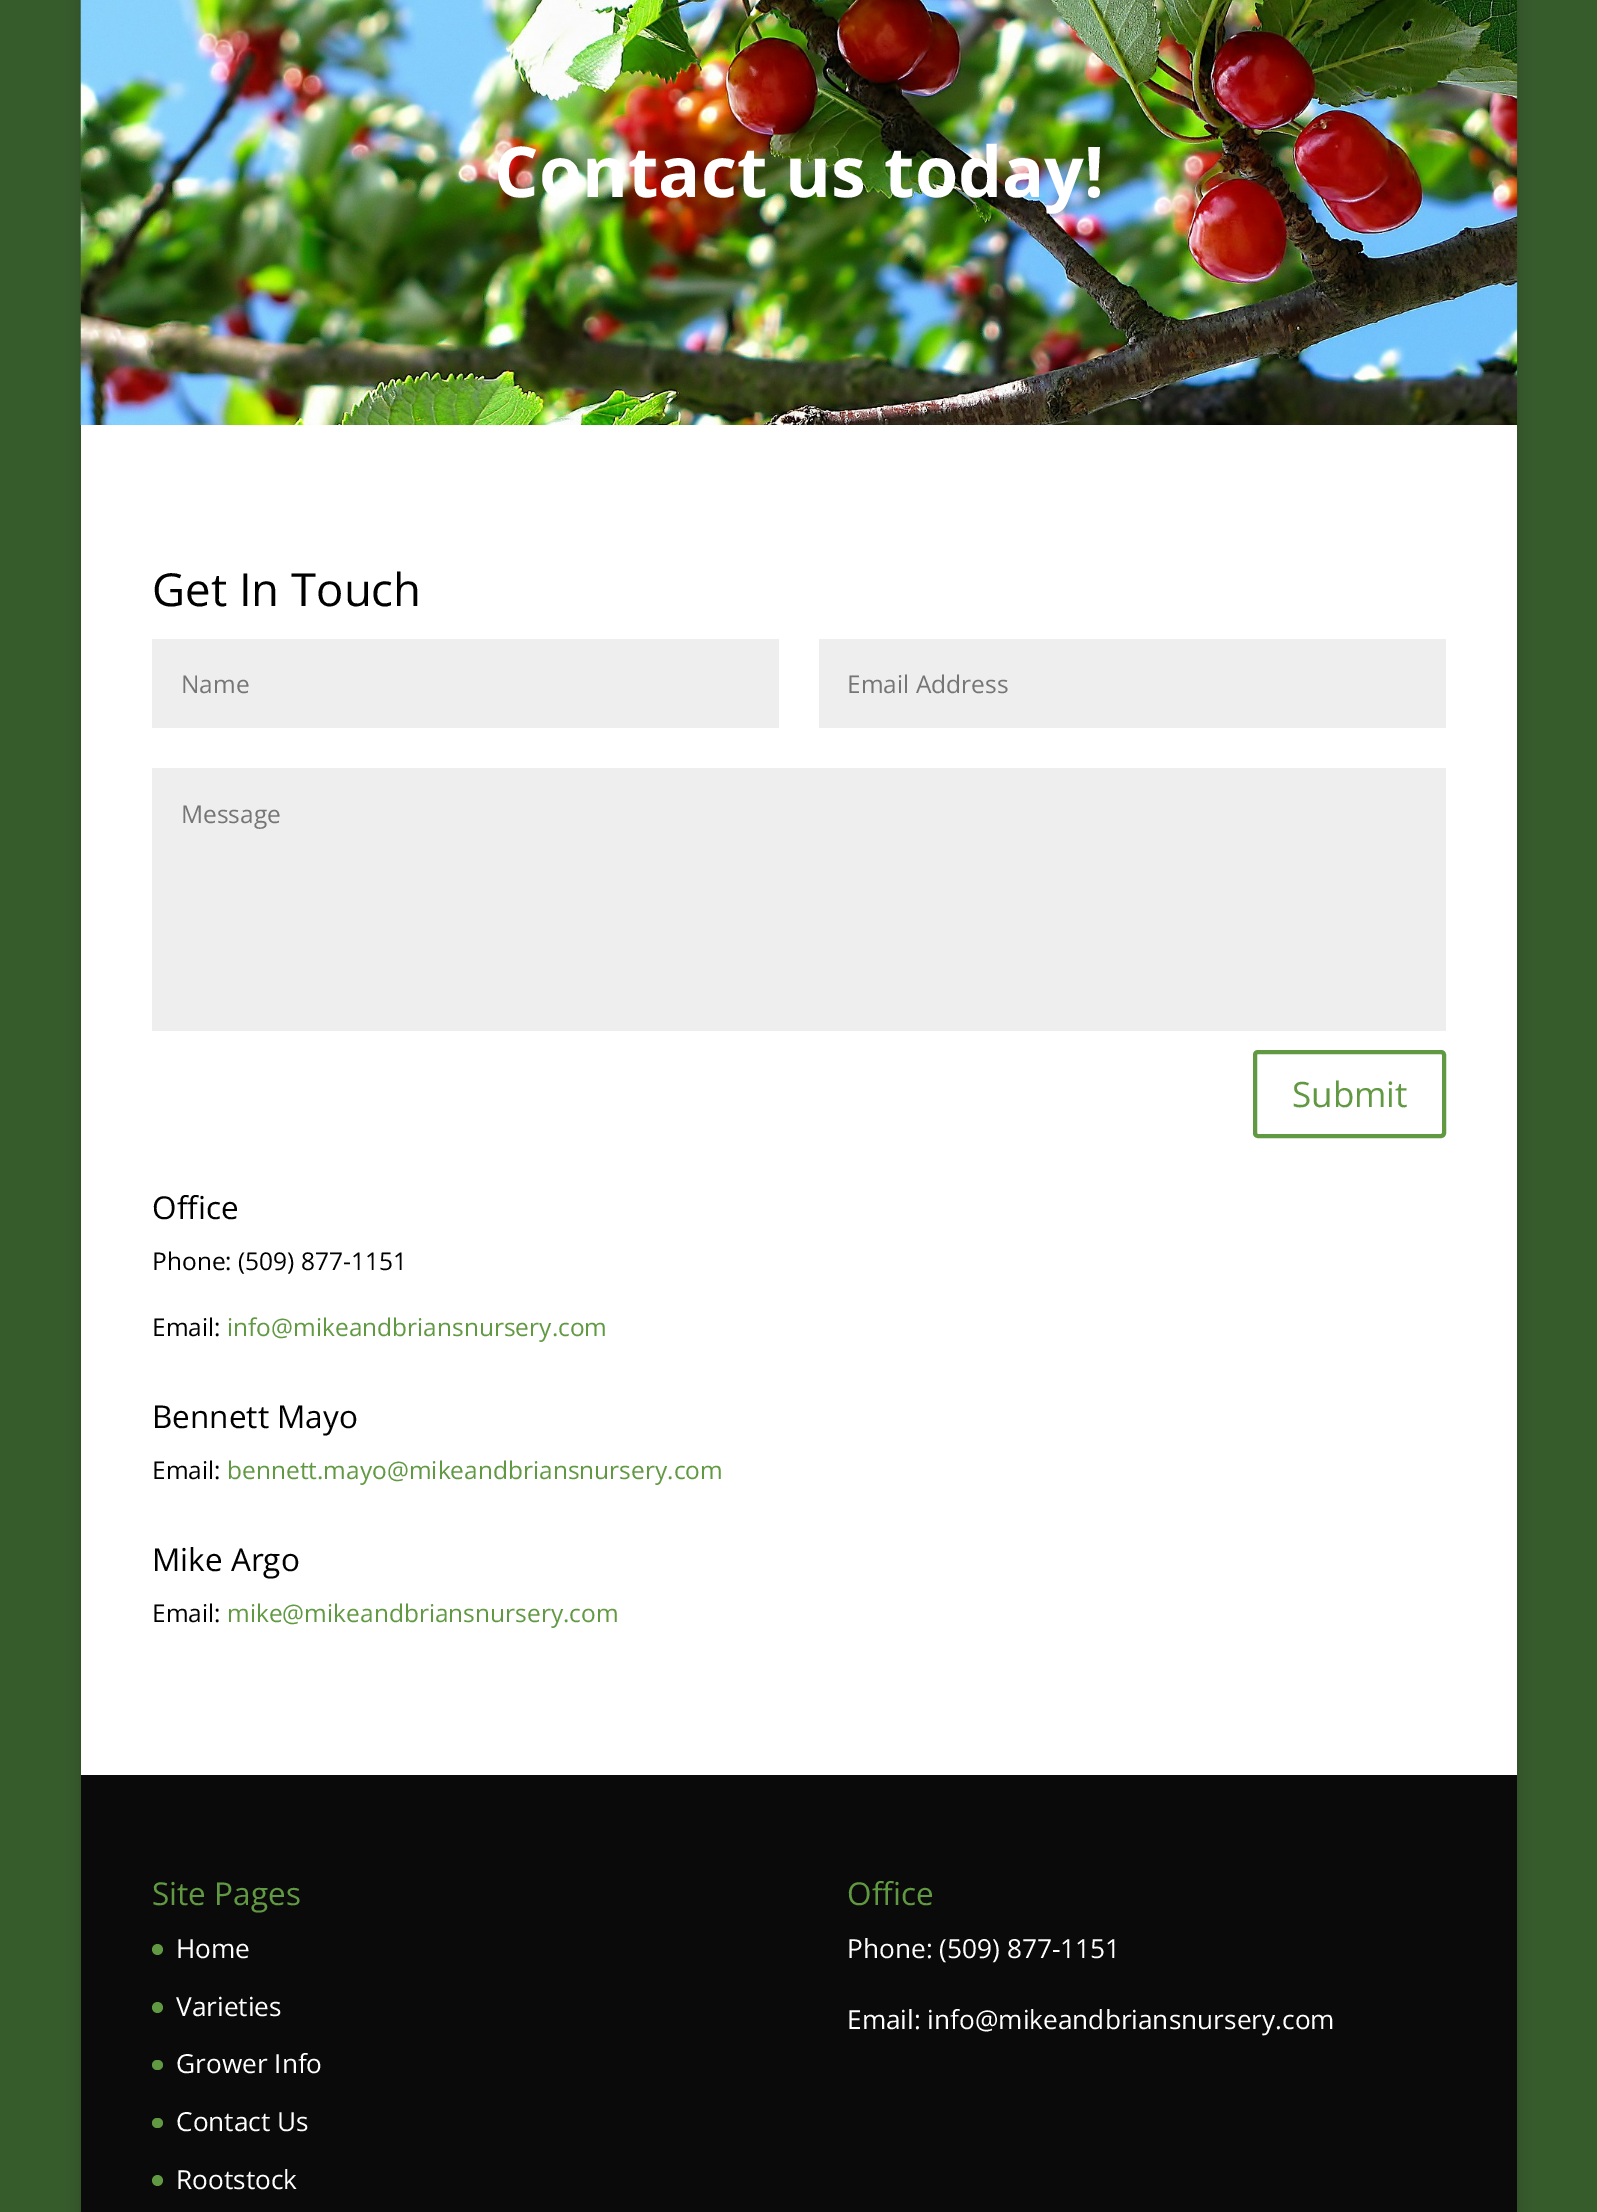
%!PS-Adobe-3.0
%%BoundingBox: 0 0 1597 2212
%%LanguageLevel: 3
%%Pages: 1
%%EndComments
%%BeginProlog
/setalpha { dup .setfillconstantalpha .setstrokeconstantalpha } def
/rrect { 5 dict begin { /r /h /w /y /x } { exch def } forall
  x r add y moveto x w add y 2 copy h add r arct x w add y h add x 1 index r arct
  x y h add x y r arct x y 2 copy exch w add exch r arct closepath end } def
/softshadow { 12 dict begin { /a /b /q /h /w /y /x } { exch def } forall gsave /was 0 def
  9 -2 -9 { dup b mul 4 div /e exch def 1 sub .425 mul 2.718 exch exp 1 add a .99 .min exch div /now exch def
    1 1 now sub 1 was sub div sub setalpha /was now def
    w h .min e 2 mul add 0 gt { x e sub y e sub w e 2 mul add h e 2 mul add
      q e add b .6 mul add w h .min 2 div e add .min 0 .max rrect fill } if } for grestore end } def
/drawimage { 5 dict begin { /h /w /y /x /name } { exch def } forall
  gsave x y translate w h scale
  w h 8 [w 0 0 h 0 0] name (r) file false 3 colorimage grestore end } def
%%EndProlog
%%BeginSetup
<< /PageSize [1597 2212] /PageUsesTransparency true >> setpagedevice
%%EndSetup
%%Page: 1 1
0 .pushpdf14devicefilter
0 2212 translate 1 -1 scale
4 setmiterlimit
0.216 0.361 0.173 setrgbcolor
0 0 1597 2212 rectfill
0 setgray
81 -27 1436 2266 0 9 0.2 softshadow
(images/1.raw) 80 0 1438 425 drawimage
1 setgray
81 425 1436 1350 rectfill
0.933 setgray
152 639 627 89 rectfill
819 639 627 89 rectfill
152 768 1294 263 rectfill
0.38 0.596 0.259 setrgbcolor
4 setlinewidth
1255 1052 189 84 3 rrect stroke
0.039 setgray
81 1775 1436 437 rectfill
0.38 0.596 0.259 setrgbcolor
newpath 157.5 1949.5 5.5 0 360 arc closepath fill
newpath 157.5 2007.5 5.5 0 360 arc closepath fill
152 2060 11 10 5 rrect fill
152 2118 11 10 5 rrect fill
newpath 157.5 2180.5 5.5 0 360 arc closepath fill
/OpenSans-Bold [70 0 0 -70 0 0] selectfont
1 setgray
494 197 moveto (Contact us today!) show
/OpenSans-Regular [45.5 0 0 -45.5 0 0] selectfont
0 setgray
152 606 moveto (Get In Touch) show
/OpenSans-Regular [24.5 0 0 -24.5 0 0] selectfont
0.459 setgray
181 693 moveto (Name) show
847 693 moveto (Email Address) show
181 823 moveto (Message) show
/OpenSans-Regular [35 0 0 -35 0 0] selectfont
0.38 0.596 0.259 setrgbcolor
1292 1107 moveto (Submit) show
/OpenSans-Regular [31.5 0 0 -31.5 0 0] selectfont
0 setgray
152 1219 moveto (Office) show
/OpenSans-Regular [24.5 0 0 -24.5 0 0] selectfont
152 1270 moveto (Phone: \(509\) 877-1151) show
152 1336 moveto (Email:) show
0.38 0.596 0.259 setrgbcolor
227 1336 moveto (info@mikeandbriansnursery.com) show
/OpenSans-Regular [31.5 0 0 -31.5 0 0] selectfont
0 setgray
152 1428 moveto (Bennett Mayo) show
/OpenSans-Regular [24.5 0 0 -24.5 0 0] selectfont
152 1479 moveto (Email:) show
0.38 0.596 0.259 setrgbcolor
227 1479 moveto (bennett.mayo@mikeandbriansnursery.com) show
/OpenSans-Regular [31.5 0 0 -31.5 0 0] selectfont
0 setgray
152 1571 moveto (Mike Argo) show
/OpenSans-Regular [24.5 0 0 -24.5 0 0] selectfont
152 1622 moveto (Email:) show
0.38 0.596 0.259 setrgbcolor
227 1622 moveto (mike@mikeandbriansnursery.com) show
/OpenSans-Regular [31.5 0 0 -31.5 0 0] selectfont
152 1905 moveto (Site Pages) show
/OpenSans-Regular [26.25 0 0 -26.25 0 0] selectfont
1 setgray
176 1958 moveto (Home) show
176 2016 moveto (Varieties) show
176 2073 moveto (Grower Info) show
176 2131 moveto (Contact Us) show
176 2189 moveto (Rootstock) show
/OpenSans-Regular [31.5 0 0 -31.5 0 0] selectfont
0.38 0.596 0.259 setrgbcolor
847 1905 moveto (Office) show
/OpenSans-Regular [26.25 0 0 -26.25 0 0] selectfont
1 setgray
847 1958 moveto (Phone: \(509\) 877-1151) show
847 2029 moveto (Email: info@mikeandbriansnursery.com) show
.poppdf14devicefilter showpage
%%EOF
